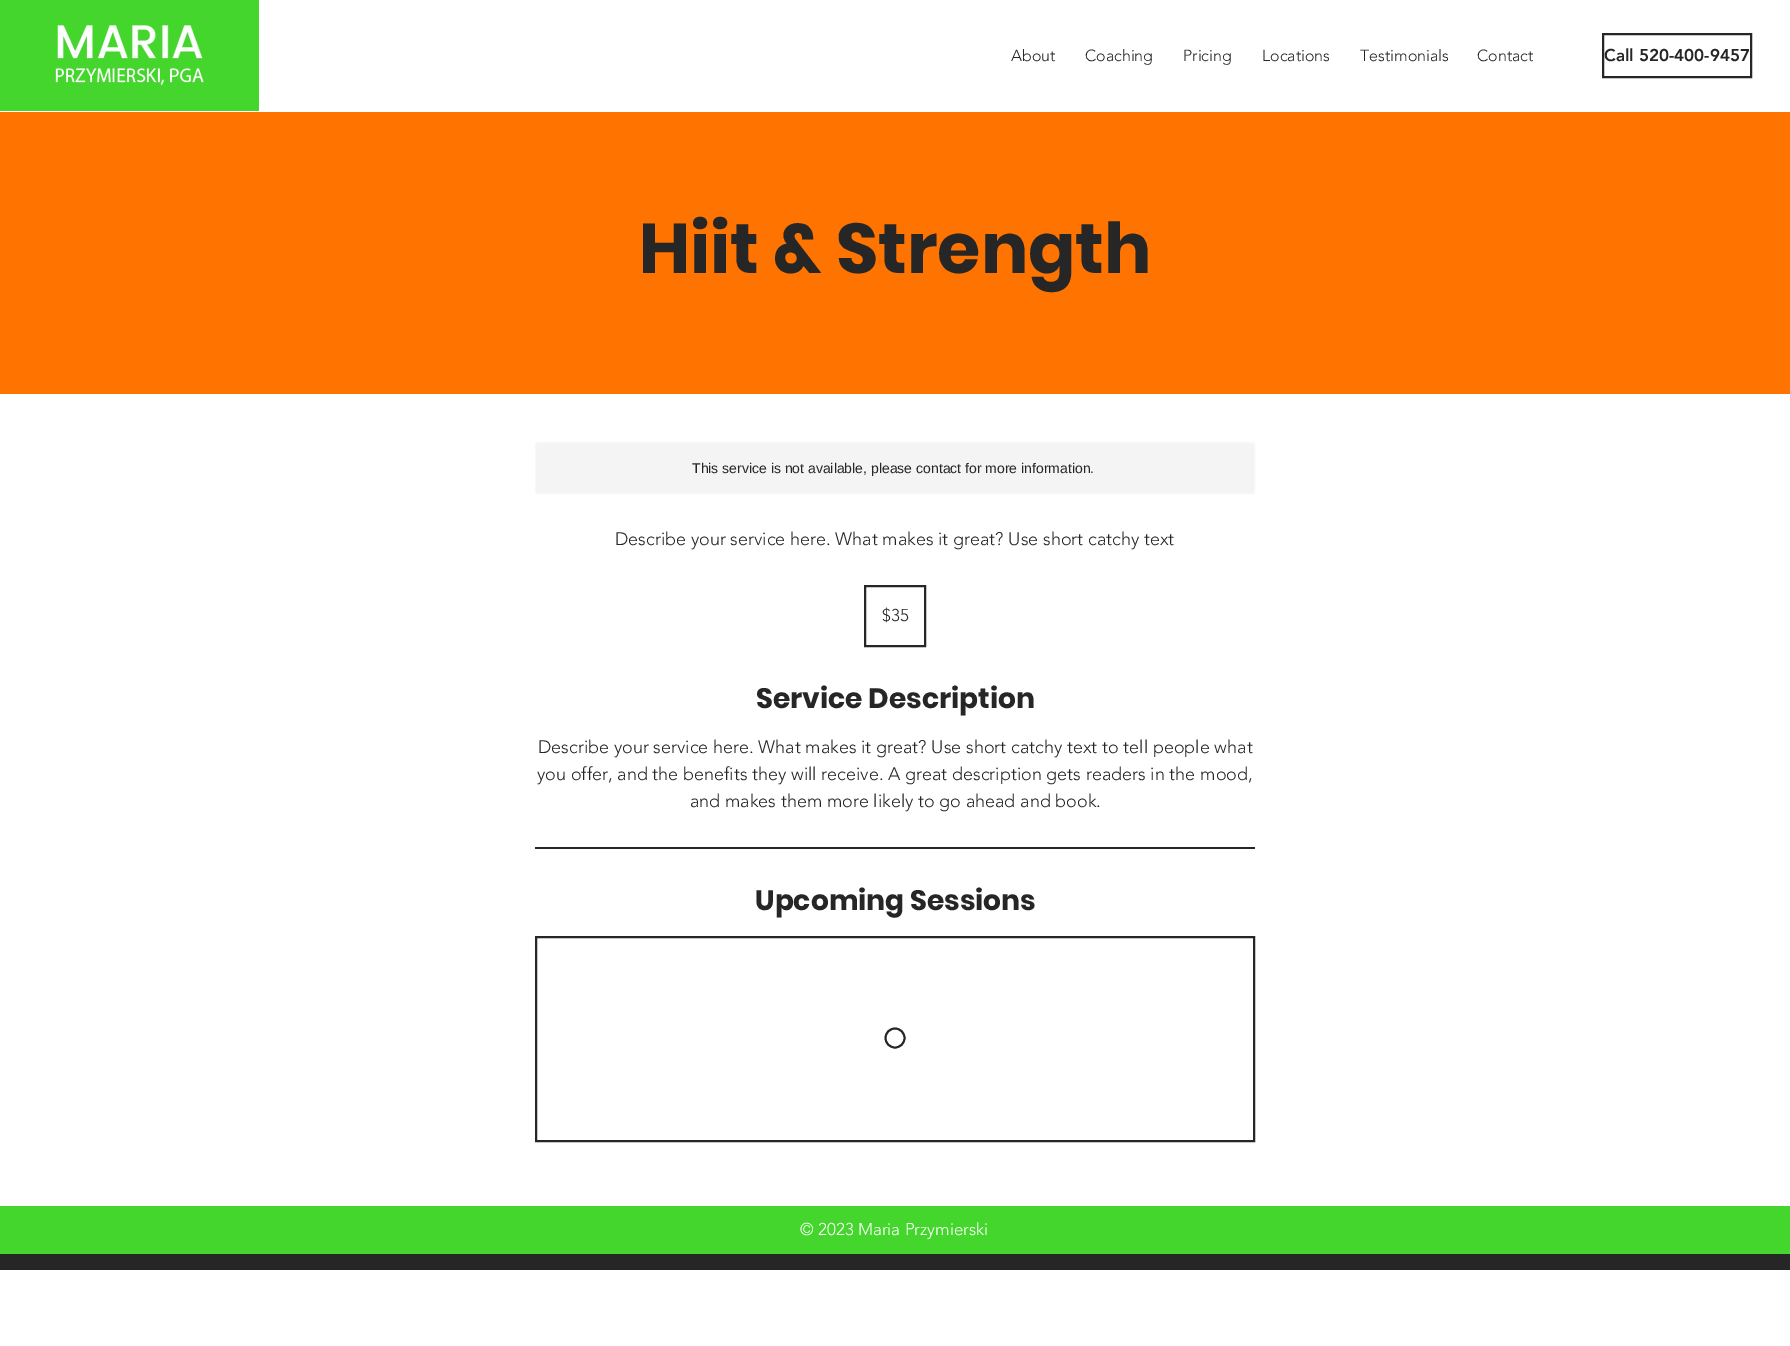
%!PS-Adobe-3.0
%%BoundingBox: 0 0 1790 1346
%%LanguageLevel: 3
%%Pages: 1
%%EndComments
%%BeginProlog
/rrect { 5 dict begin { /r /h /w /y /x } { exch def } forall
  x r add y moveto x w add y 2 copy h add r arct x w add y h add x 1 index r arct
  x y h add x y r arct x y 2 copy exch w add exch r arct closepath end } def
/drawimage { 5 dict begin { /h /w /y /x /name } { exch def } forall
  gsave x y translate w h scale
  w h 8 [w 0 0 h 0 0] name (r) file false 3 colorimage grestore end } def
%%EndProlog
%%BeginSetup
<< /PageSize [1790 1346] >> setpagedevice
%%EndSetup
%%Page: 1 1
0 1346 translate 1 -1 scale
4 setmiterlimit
1 setgray
0 0 1790 1346 rectfill
0.267 0.839 0.173 setrgbcolor
0 0 259 111 rectfill
(images/1.raw) 55 25 149 60 drawimage
0.149 setgray
2 setlinewidth
1603 34 148 43 rectstroke
1 0.451 0 setrgbcolor
0 112 1790 282 rectfill
0.957 setgray
535.5 442.5 719 51 1.5 rrect gsave fill grestore
0.973 setgray
1 setlinewidth
stroke
0.149 setgray
2 setlinewidth
865 586 60 60 rectstroke
535 847 720 2 rectfill
536 937 718 204 rectstroke
1.9 setlinewidth
newpath 895 1038 9.5 0 360 arc closepath stroke
0.267 0.839 0.173 setrgbcolor
0 1206 1790 48 rectfill
0.149 setgray
0 1254 1790 16 rectfill
/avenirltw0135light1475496-Light [16 0 0 -16 0 0] selectfont
1011 61 moveto (About) show
1085 61 moveto (Coaching) show
1183 61 moveto (Pricing) show
1262 61 moveto (Locations) show
1360 61 moveto (Testimonials) show
1477 61 moveto (Contact) show
/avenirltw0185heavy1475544-Black [17 0 0 -17 0 0] selectfont
1604 61 moveto (Call 520-400-9457) show
/Poppins-Bold [70 0 0 -70 0 0] selectfont
639 273 moveto (Hiit & Strength) show
/LiberationSans-Regular [14 0 0 -14 0 0] selectfont
692 473 moveto (This service is not available, please contact for more information.) show
/avenirltw0135light1475496-Light [18 0 0 -18 0 0] selectfont
615 545 moveto (Describe your service here. What makes it great? Use short catchy text) show
/avenirltw0135light1475496-Light [17 0 0 -17 0 0] selectfont
882 621 moveto ($35) show
/Poppins-Bold [28 0 0 -28 0 0] selectfont
756 708 moveto (Service Description) show
/avenirltw0135light1475496-Light [18 0 0 -18 0 0] selectfont
538 753 moveto (Describe your service here. What makes it great? Use short catchy text to tell people what) show
537 780 moveto (you offer, and the benefits they will receive. A great description gets readers in the mood,) show
690 807 moveto (and makes them more likely to go ahead and book.) show
/Poppins-Bold [28 0 0 -28 0 0] selectfont
755 910 moveto (Upcoming Sessions) show
/avenirltw0135light1475496-Light [17 0 0 -17 0 0] selectfont
1 setgray
800 1235 moveto (© 2023 Maria Przymierski) show
showpage
%%EOF
